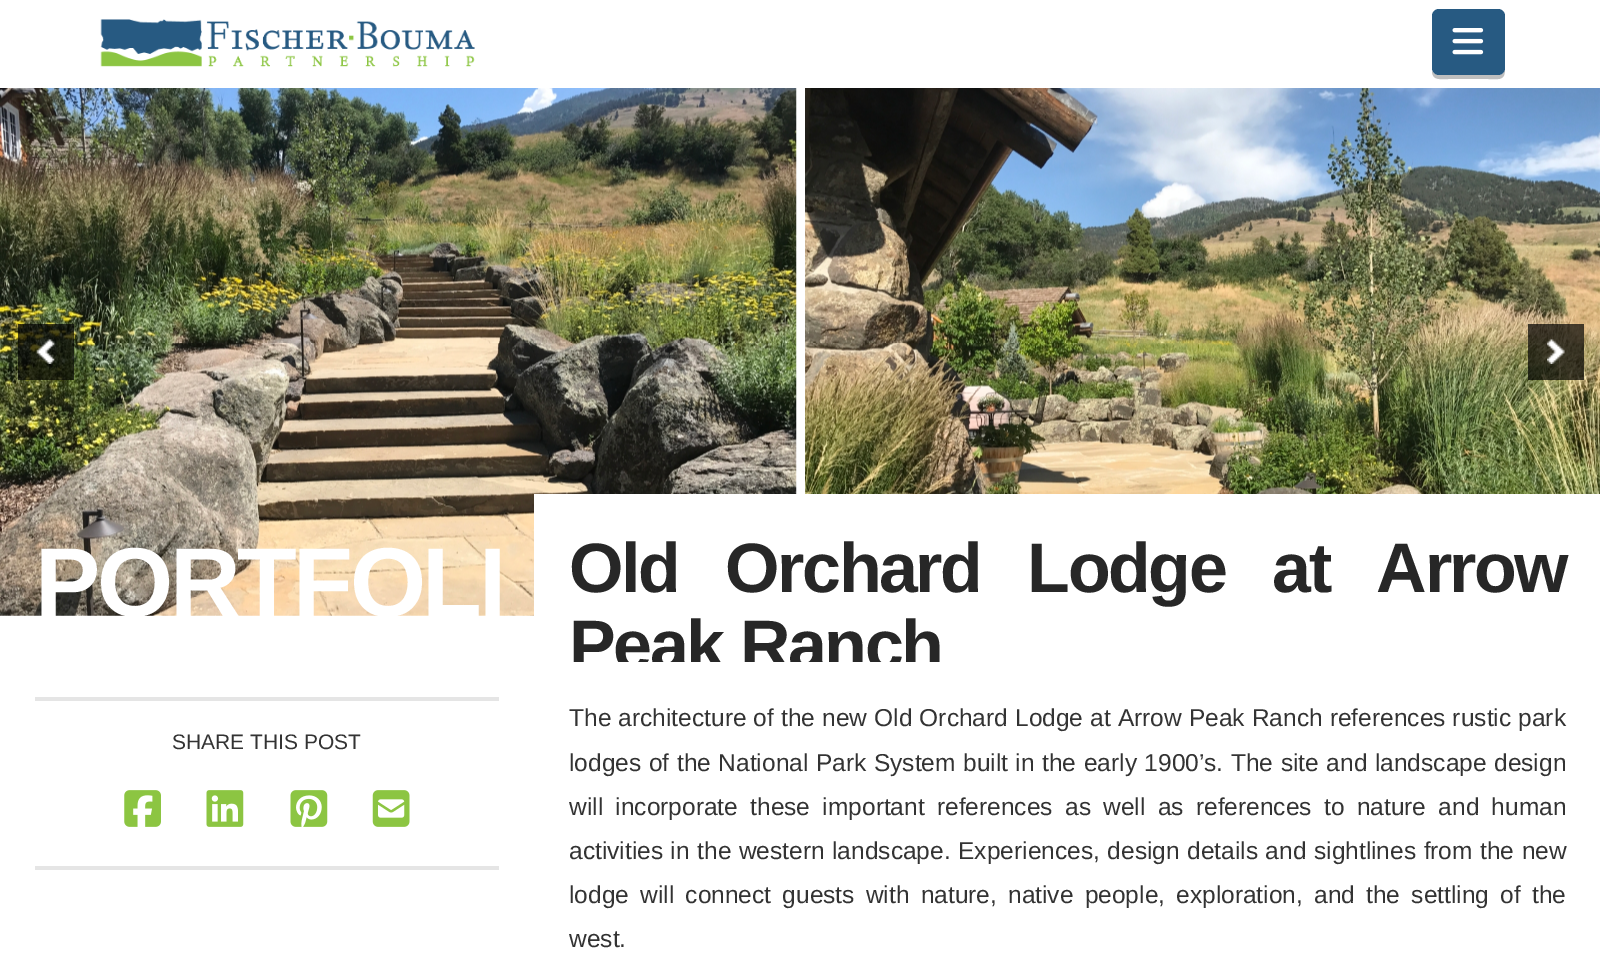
%!PS-Adobe-3.0
%%BoundingBox: 0 0 1600 958
%%LanguageLevel: 3
%%Pages: 1
%%EndComments
%%BeginProlog
/setalpha { dup .setfillconstantalpha .setstrokeconstantalpha } def
/rrect { 5 dict begin { /r /h /w /y /x } { exch def } forall
  x r add y moveto x w add y 2 copy h add r arct x w add y h add x 1 index r arct
  x y h add x y r arct x y 2 copy exch w add exch r arct closepath end } def
/drawimage { 5 dict begin { /h /w /y /x /name } { exch def } forall
  gsave x y translate w h scale
  w h 8 [w 0 0 h 0 0] name (r) file false 3 colorimage grestore end } def
%%EndProlog
%%BeginSetup
<< /PageSize [1600 958] /PageUsesTransparency true >> setpagedevice
%%EndSetup
%%Page: 1 1
0 .pushpdf14devicefilter
0 958 translate 1 -1 scale
4 setmiterlimit
1 setgray
0 0 1600 958 rectfill
(images/1.raw) 100 19 375 48 drawimage
0.749 setgray
newpath 1432 71 moveto 1432 81 1441 79 1449 79 curveto 1488 79 lineto 1500 79 1505 81 1505 68 curveto 1505 72 1502 75 1498 75 curveto 1438 75 lineto 1436 75 1433 73 1432 71 curveto closepath fill
0.153 0.353 0.51 setrgbcolor
1432 9 73 66 7 rrect fill
(images/2.raw) 1452 28 32 27 drawimage
(images/3.raw) 0 88 797 528 drawimage
(images/4.raw) 805 88 795 406 drawimage
0.7 setalpha
0 setgray
18 324 56 56 rectfill
1 setalpha
(images/5.raw) 36 339 19 25 drawimage
0.7 setalpha
1528 324 56 56 rectfill
1 setalpha
(images/6.raw) 1547 339 18 25 drawimage
1 setgray
534 494 263 122 rectfill
0.898 setgray
35 697 464 4 rectfill
35 866 464 4 rectfill
(images/7.raw) 124 790 37 37 drawimage
(images/8.raw) 206 790 38 37 drawimage
(images/9.raw) 290 790 38 37 drawimage
(images/10.raw) 372 790 38 37 drawimage
/LiberationSans-Bold [98 0 0 -98 0 0] selectfont
1 setgray
35 616 moveto -3.5 0 (PORTFOLI) ashow
/LiberationSans-Bold [70 0 0 -70 0 0] selectfont
0.153 setgray
569 592 moveto 30 0 32 -2.45 0 (Old Orchard Lodge at Arrow) awidthshow
569 669 moveto -2.45 0 (Peak Ranch) ashow
/LiberationSans-Regular [21 0 0 -21 0 0] selectfont
0.2 setgray
172 749 moveto (SHARE THIS POST) show
1 setgray
573 662 367 8 rectfill
/LiberationSans-Regular [24.5 0 0 -24.5 0 0] selectfont
0.2 setgray
569 726 moveto 0.3 0 32 (The architecture of the new Old Orchard Lodge at Arrow Peak Ranch references rustic park) widthshow
569 771 moveto 0.75 0 32 (lodges of the National Park System built in the early 1900’s. The site and landscape design) widthshow
569 815 moveto 5.5 0 32 (will incorporate these important references as well as references to nature and human) widthshow
569 859 moveto 0.75 0 32 (activities in the western landscape. Experiences, design details and sightlines from the new) widthshow
569 903 moveto 4.4 0 32 (lodge will connect guests with nature, native people, exploration, and the settling of the) widthshow
569 947 moveto (west.) show
.poppdf14devicefilter showpage
%%EOF
